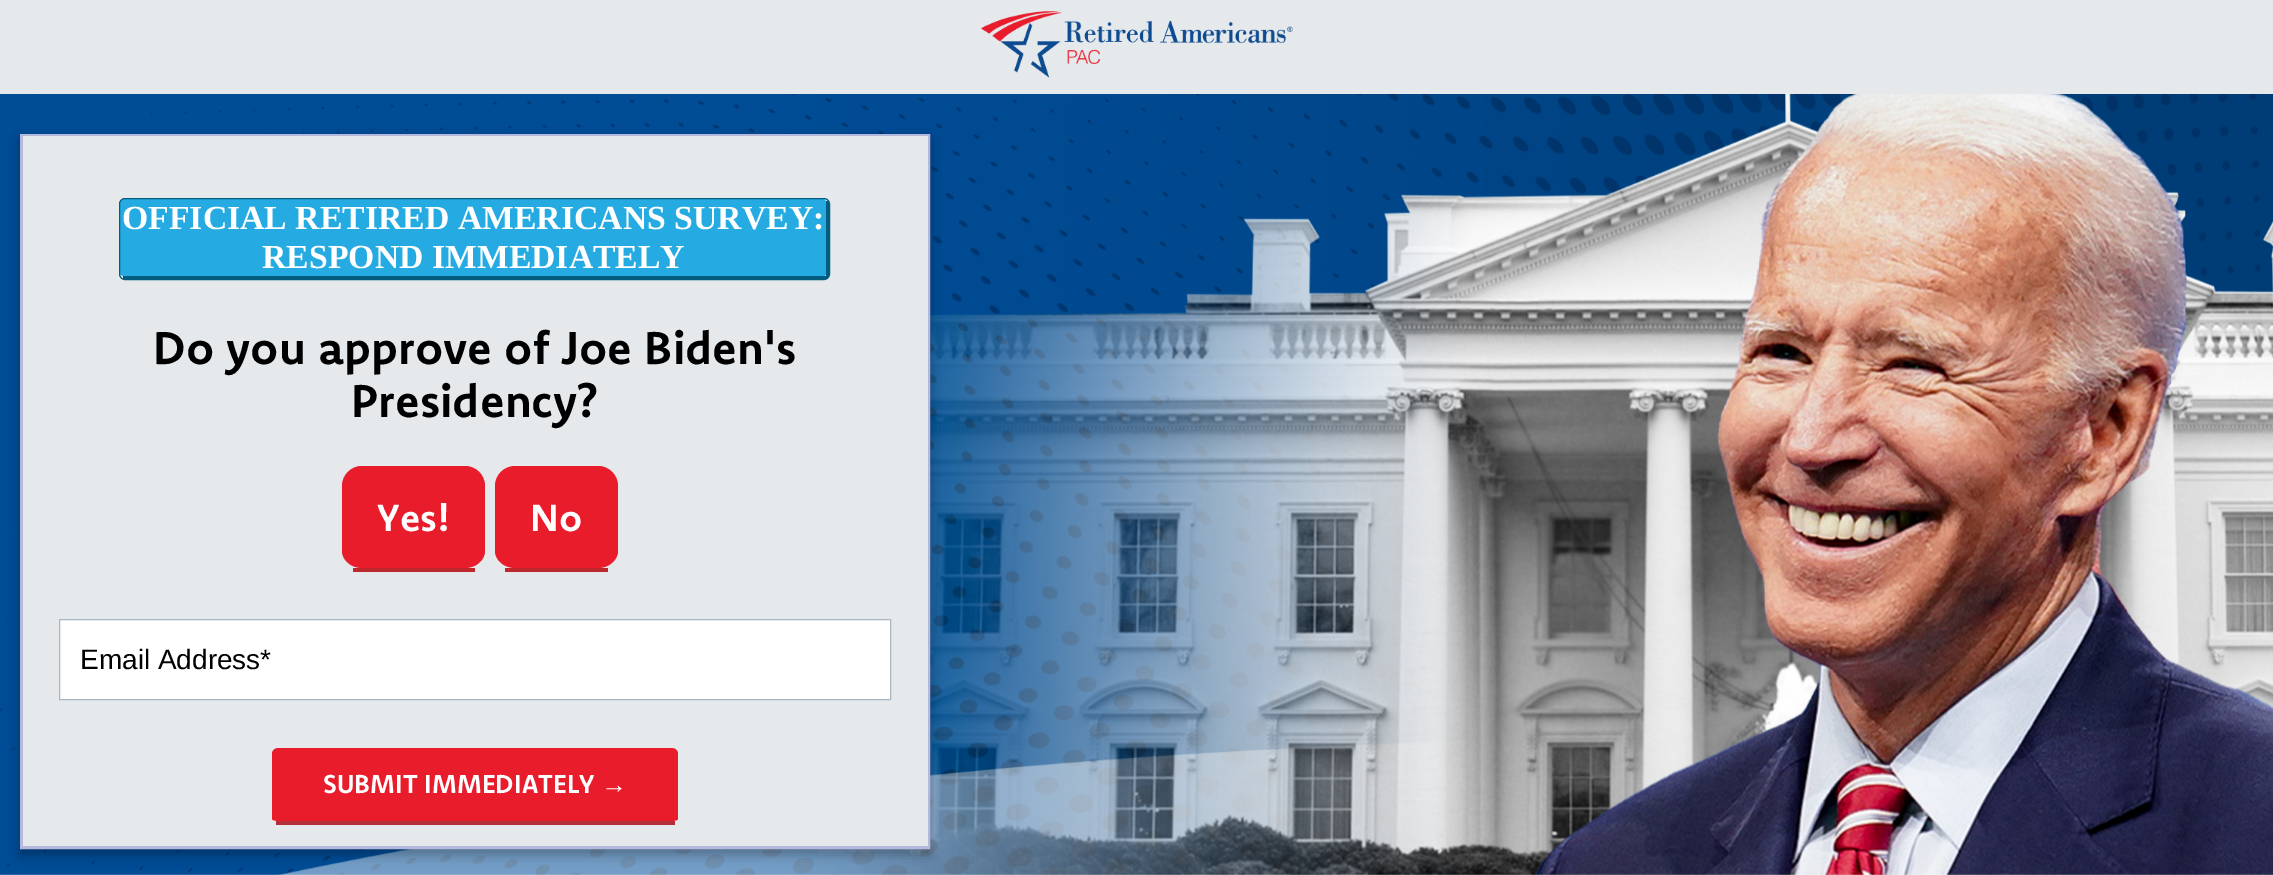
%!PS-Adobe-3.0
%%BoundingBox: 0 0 2273 875
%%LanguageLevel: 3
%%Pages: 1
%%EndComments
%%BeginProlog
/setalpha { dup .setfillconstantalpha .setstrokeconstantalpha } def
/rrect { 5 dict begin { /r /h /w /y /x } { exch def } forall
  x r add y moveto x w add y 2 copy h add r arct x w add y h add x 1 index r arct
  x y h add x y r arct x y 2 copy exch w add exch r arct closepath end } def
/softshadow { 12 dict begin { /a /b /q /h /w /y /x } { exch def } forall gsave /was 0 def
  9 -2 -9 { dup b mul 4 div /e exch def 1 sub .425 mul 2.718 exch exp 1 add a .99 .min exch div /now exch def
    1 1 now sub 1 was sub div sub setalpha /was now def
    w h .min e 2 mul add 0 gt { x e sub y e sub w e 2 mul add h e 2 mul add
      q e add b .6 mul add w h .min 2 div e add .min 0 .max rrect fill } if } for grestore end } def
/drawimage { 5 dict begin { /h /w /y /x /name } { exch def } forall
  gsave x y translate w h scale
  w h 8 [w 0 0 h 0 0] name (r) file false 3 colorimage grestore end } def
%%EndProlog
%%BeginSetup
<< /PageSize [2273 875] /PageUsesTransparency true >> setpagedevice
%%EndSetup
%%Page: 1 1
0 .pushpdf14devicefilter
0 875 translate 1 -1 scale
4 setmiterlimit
1 setgray
0 0 2273 875 rectfill
0.898 0.914 0.925 setrgbcolor
0 0 2273 94 rectfill
(images/1.raw) 981 11 312 67 drawimage
(images/2.raw) 0 94 2273 781 drawimage
0 setgray
20 140 910 715 0 6 0.3 softshadow
0.706 0.725 0.859 setrgbcolor
3 setlinewidth
21.5 135.5 907 712 rectstroke
0.898 0.914 0.925 setrgbcolor
23 136 905 710 rectfill
0.145 0.671 0.886 setrgbcolor
newpath 125 199 moveto 824 199 lineto 825 199 826 201 826 204 curveto 826 274 lineto 826 275 825 276 824 276 curveto 125 276 lineto 122 276 120 275 120 274 curveto 120 204 lineto 120 201 122 199 125 199 curveto closepath fill
0.012 0.365 0.498 setrgbcolor
1 setlinewidth
119.5 198.5 710 81 5.5 rrect stroke
826 201 3 77 rectfill
123 276 705 3 rectfill
0.914 0.11 0.173 setrgbcolor
newpath 362 466 moveto 465 466 lineto 476 466 485 475 485 486 curveto 485 551 lineto 485 560 476 568 465 568 curveto 362 568 lineto 351 568 342 560 342 551 curveto 342 486 lineto 342 475 351 466 362 466 curveto closepath fill
0.745 0.153 0.18 setrgbcolor
353 568 122 4 rectfill
0.914 0.11 0.173 setrgbcolor
newpath 515 466 moveto 598 466 lineto 609 466 618 475 618 486 curveto 618 551 lineto 618 560 609 568 598 568 curveto 515 568 lineto 504 568 495 560 495 551 curveto 495 486 lineto 495 475 504 466 515 466 curveto closepath fill
0.745 0.153 0.18 setrgbcolor
505 568 103 4 rectfill
1 setgray
newpath 59.5 619.5 moveto 890.5 619.5 lineto 890.5 699.5 lineto 59.5 699.5 lineto closepath gsave fill grestore
0.667 0.718 0.757 setrgbcolor
stroke
0.914 0.11 0.173 setrgbcolor
newpath 279 748 moveto 671 748 lineto 675 748 678 750 678 754 curveto 678 819 lineto 678 820 675 821 671 821 curveto 279 821 lineto 275 821 272 820 272 819 curveto 272 754 lineto 272 750 275 748 279 748 curveto closepath fill
0.71 0.184 0.227 setrgbcolor
276 821 399 4 rectfill
/LiberationSerif-Bold [33.75 0 0 -33.75 0 0] selectfont
1 setgray
122 229 moveto (OFFICIAL RETIRED AMERICANS SURVEY:) show
262 268 moveto (RESPOND IMMEDIATELY) show
/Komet-Bold [46 0 0 -46 0 0] selectfont
0 setgray
153 364 moveto (Do you approve of Joe Biden's) show
351 417 moveto (Presidency?) show
/Komet-Bold [38 0 0 -38 0 0] selectfont
1 setgray
377 531 moveto (Yes!) show
530 531 moveto (No) show
/LiberationSans-Regular [28 0 0 -28 0 0] selectfont
0 setgray
80 669 moveto (Email Address*) show
/Komet-Bold [26 0 0 -26 0 0] selectfont
1 setgray
323 793 moveto (SUBMIT IMMEDIATELY) show
/LiberationSans-Bold [26 0 0 -26 0 0] selectfont
601 793 moveto (→) show
.poppdf14devicefilter showpage
%%EOF
